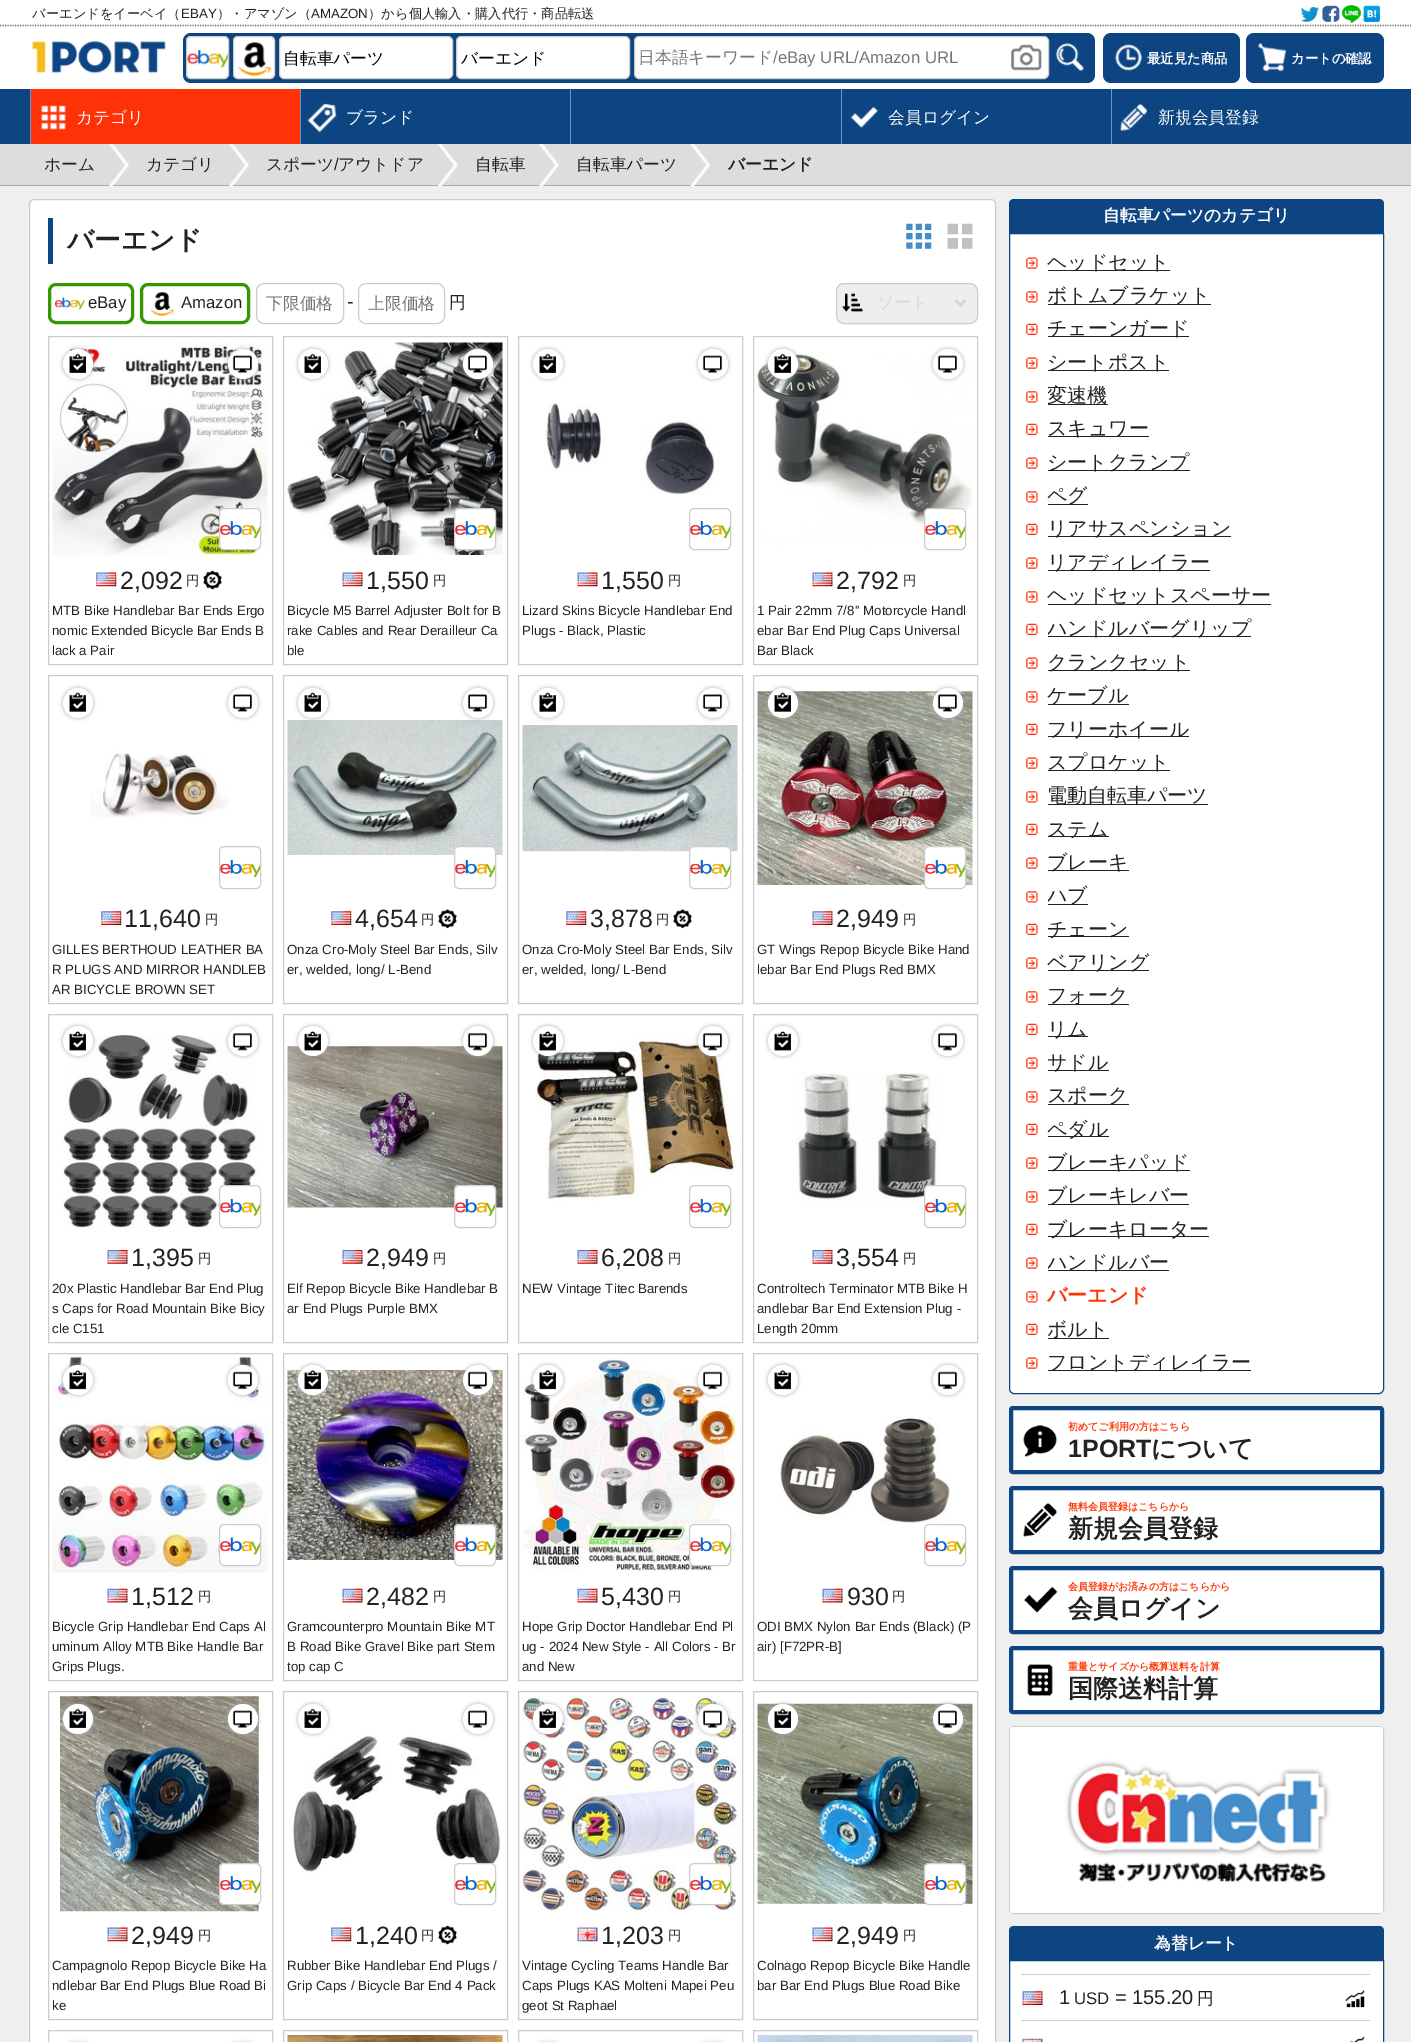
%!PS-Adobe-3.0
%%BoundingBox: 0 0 1411 2042
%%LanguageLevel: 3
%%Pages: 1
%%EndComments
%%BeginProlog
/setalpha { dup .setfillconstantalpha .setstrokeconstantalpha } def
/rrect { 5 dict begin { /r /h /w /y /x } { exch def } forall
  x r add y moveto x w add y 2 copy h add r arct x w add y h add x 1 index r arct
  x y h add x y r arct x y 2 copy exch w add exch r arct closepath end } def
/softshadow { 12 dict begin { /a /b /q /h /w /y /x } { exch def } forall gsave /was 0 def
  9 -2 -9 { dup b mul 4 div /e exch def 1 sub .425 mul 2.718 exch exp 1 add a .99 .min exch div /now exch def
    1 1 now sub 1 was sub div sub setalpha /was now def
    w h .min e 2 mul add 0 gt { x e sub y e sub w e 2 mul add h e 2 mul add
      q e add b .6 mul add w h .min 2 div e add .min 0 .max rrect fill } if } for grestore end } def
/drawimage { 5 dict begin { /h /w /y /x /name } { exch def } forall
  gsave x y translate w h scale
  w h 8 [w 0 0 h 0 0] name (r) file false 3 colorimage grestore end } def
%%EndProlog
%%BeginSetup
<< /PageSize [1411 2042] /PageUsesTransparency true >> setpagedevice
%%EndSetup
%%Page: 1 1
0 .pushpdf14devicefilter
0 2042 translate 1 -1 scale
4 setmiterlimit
0.937 setgray
0 0 1411 2042 rectfill
1 setgray
0 0 1411 89 rectfill
0.4 setgray
1.2 setlinewidth
[1.25 1.25] 0 setdash
newpath 0 25.5 moveto 1411 25.5 lineto stroke
(images/1.raw) 1300 5 80 18 drawimage
(images/2.raw) 32 41 134 33 drawimage
0.051 0.271 0.514 setrgbcolor
183 33 912 50 8 rrect fill
1 setgray
186 36 43 43 5 rrect fill
(images/3.raw) 187 49 43 19 drawimage
0.8 setgray
1 setlinewidth
[] 0 setdash
186.5 36.5 42 42 4.5 rrect stroke
1 setgray
233 36 42 43 5 rrect fill
(images/4.raw) 238 42 34 35 drawimage
0.8 setgray
233.5 36.5 41 42 4.5 rrect stroke
1 setgray
279.5 36.5 173 42 4.5 rrect gsave fill grestore
0.8 setgray
stroke
1 setgray
456.5 36.5 173 42 4.5 rrect gsave fill grestore
0.8 setgray
stroke
1 setgray
634.5 36.5 414 42 4.5 rrect gsave fill grestore
0.8 setgray
stroke
(images/5.raw) 1011 44 31 27 drawimage
(images/6.raw) 1056 43 28 29 drawimage
0.051 0.271 0.514 setrgbcolor
1103 33 137 50 8 rrect fill
(images/7.raw) 1115 44 27 27 drawimage
1246 33 138 50 8 rrect fill
(images/8.raw) 1258 43 29 29 drawimage
0 89 1411 55 rectfill
0.4 0.6 0.8 setrgbcolor
30 89 1 55 rectfill
300 89 1 55 rectfill
1 0.192 0.024 setrgbcolor
31 89 269 55 rectfill
(images/9.raw) 41 105 25 25 drawimage
0.4 0.6 0.8 setrgbcolor
570 89 1 55 rectfill
(images/10.raw) 307 103 30 30 drawimage
841 89 1 55 rectfill
(images/11.raw) 850 106 28 22 drawimage
1111 89 1 55 rectfill
(images/12.raw) 1120 104 27 27 drawimage
0.867 setgray
0 144 1411 41 rectfill
0.667 setgray
0 185 1411 1 rectfill
(images/13.raw) 108 144 21 43 drawimage
(images/13.raw) 228 144 21 43 drawimage
(images/14.raw) 437 144 21 43 drawimage
(images/15.raw) 538 144 21 43 drawimage
(images/16.raw) 690 144 20 43 drawimage
1 setgray
29.5 199.5 966 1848 4.5 rrect gsave fill grestore
0.8 setgray
stroke
0.051 0.271 0.514 setrgbcolor
48 218 5 46 rectfill
(images/17.raw) 906 223 26 26 drawimage
(images/18.raw) 947 223 26 26 drawimage
0.2 0.6 0 setrgbcolor
3 setlinewidth
49.5 284.5 83 38 6.5 rrect stroke
(images/19.raw) 55 297 30 13 drawimage
141.5 284.5 107 38 6.5 rrect stroke
(images/20.raw) 150 291 24 26 drawimage
0.8 setgray
1 setlinewidth
256.5 283.5 87 40 7.5 rrect stroke
358.5 283.5 86 40 7.5 rrect stroke
0.933 setgray
836.5 283.5 141 40 7.5 rrect gsave fill grestore
0.8 setgray
stroke
(images/21.raw) 842 293 21 19 drawimage
0.839 setgray
2.5 setlinewidth
newpath 955.5 300 moveto 960.5 305 lineto 965.5 300 lineto stroke
0.8 setgray
1 setlinewidth
48.5 336.5 224 328 rectstroke
(images/22.raw) 52 341 216 216 drawimage
0.667 setgray
63 349 30 30 15 2 1 softshadow
1 setgray
newpath 78 364 15 0 360 arc closepath fill
(images/23.raw) 69 353 17 20 drawimage
0.667 setgray
228 349 30 30 15 2 1 softshadow
1 setgray
newpath 243 364 15 0 360 arc closepath fill
(images/24.raw) 232 355 21 18 drawimage
219 508 42 42 5 rrect fill
(images/25.raw) 220 521 42 17 drawimage
0.8 setgray
219.5 508.5 41 41 4.5 rrect stroke
(images/26.raw) 96 572 21 15 drawimage
(images/27.raw) 203 570 19 20 drawimage
283.5 336.5 224 328 rectstroke
(images/28.raw) 287 342 216 213 drawimage
0.667 setgray
298 349 30 30 15 2 1 softshadow
1 setgray
newpath 313 364 15 0 360 arc closepath fill
(images/29.raw) 304 353 17 20 drawimage
0.667 setgray
463 349 30 30 15 2 1 softshadow
1 setgray
newpath 478 364 15 0 360 arc closepath fill
(images/24.raw) 467 355 21 18 drawimage
454 508 42 42 5 rrect fill
(images/30.raw) 455 521 42 17 drawimage
0.8 setgray
454.5 508.5 41 41 4.5 rrect stroke
(images/31.raw) 342 572 21 15 drawimage
518.5 336.5 224 328 rectstroke
0.667 setgray
533 349 30 30 15 2 1 softshadow
1 setgray
newpath 548 364 15 0 360 arc closepath fill
(images/29.raw) 539 353 17 20 drawimage
0.667 setgray
698 349 30 30 15 2 1 softshadow
1 setgray
newpath 713 364 15 0 360 arc closepath fill
(images/24.raw) 702 355 21 18 drawimage
(images/32.raw) 544 403 171 92 drawimage
(images/33.raw) 690 521 42 17 drawimage
0.8 setgray
689.5 508.5 41 41 4.5 rrect stroke
(images/31.raw) 577 572 21 15 drawimage
753.5 336.5 224 328 rectstroke
(images/36.raw) 757 354 216 191 drawimage
0.667 setgray
768 349 30 30 15 2 1 softshadow
1 setgray
newpath 783 364 15 0 360 arc closepath fill
(images/34.raw) 774 353 17 20 drawimage
0.667 setgray
933 349 30 30 15 2 1 softshadow
1 setgray
newpath 948 364 15 0 360 arc closepath fill
(images/35.raw) 937 355 21 18 drawimage
924 508 42 42 5 rrect fill
(images/37.raw) 925 521 42 17 drawimage
0.8 setgray
924.5 508.5 41 41 4.5 rrect stroke
(images/31.raw) 812 572 21 15 drawimage
48.5 675.5 224 328 rectstroke
0.667 setgray
63 688 30 30 15 2 1 softshadow
1 setgray
newpath 78 703 15 0 360 arc closepath fill
(images/38.raw) 69 692 17 20 drawimage
0.667 setgray
228 688 30 30 15 2 1 softshadow
1 setgray
newpath 243 703 15 0 360 arc closepath fill
(images/39.raw) 232 694 21 18 drawimage
(images/40.raw) 90 751 140 67 drawimage
(images/41.raw) 220 860 42 17 drawimage
0.8 setgray
219.5 846.5 41 42 4.5 rrect stroke
(images/42.raw) 101 911 21 14 drawimage
283.5 675.5 224 328 rectstroke
(images/44.raw) 287 720 216 135 drawimage
0.667 setgray
298 688 30 30 15 2 1 softshadow
1 setgray
newpath 313 703 15 0 360 arc closepath fill
(images/43.raw) 304 692 17 20 drawimage
0.667 setgray
463 688 30 30 15 2 1 softshadow
1 setgray
newpath 478 703 15 0 360 arc closepath fill
(images/39.raw) 467 694 21 18 drawimage
454 846 42 43 5 rrect fill
(images/45.raw) 455 860 42 17 drawimage
0.8 setgray
454.5 846.5 41 42 4.5 rrect stroke
(images/42.raw) 331 911 21 14 drawimage
(images/46.raw) 438 908 19 21 drawimage
518.5 675.5 224 328 rectstroke
0.667 setgray
533 688 30 30 15 2 1 softshadow
1 setgray
newpath 548 703 15 0 360 arc closepath fill
(images/43.raw) 539 692 17 20 drawimage
0.667 setgray
698 688 30 30 15 2 1 softshadow
1 setgray
newpath 713 703 15 0 360 arc closepath fill
(images/39.raw) 702 694 21 18 drawimage
(images/47.raw) 522 725 216 127 drawimage
689 846 42 43 5 rrect fill
(images/45.raw) 690 860 42 17 drawimage
0.8 setgray
689.5 846.5 41 42 4.5 rrect stroke
(images/42.raw) 566 911 21 14 drawimage
(images/48.raw) 673 908 19 21 drawimage
753.5 675.5 224 328 rectstroke
(images/51.raw) 757 691 216 194 drawimage
0.667 setgray
768 688 30 30 15 2 1 softshadow
1 setgray
newpath 783 703 15 0 360 arc closepath fill
(images/49.raw) 774 692 17 20 drawimage
0.667 setgray
933 688 30 30 15 2 1 softshadow
1 setgray
newpath 948 703 15 0 360 arc closepath fill
(images/50.raw) 937 694 21 18 drawimage
924 846 42 43 5 rrect fill
(images/52.raw) 925 860 42 17 drawimage
0.8 setgray
924.5 846.5 41 42 4.5 rrect stroke
(images/53.raw) 812 911 21 14 drawimage
48.5 1014.5 224 328 rectstroke
(images/56.raw) 61 1034 198 198 drawimage
0.667 setgray
63 1026 30 30 15 2 1 softshadow
1 setgray
newpath 78 1041 15 0 360 arc closepath fill
(images/54.raw) 69 1031 17 20 drawimage
0.667 setgray
228 1026 30 30 15 2 1 softshadow
1 setgray
newpath 243 1041 15 0 360 arc closepath fill
(images/55.raw) 232 1033 21 18 drawimage
219 1185 42 43 5 rrect fill
(images/57.raw) 220 1198 42 18 drawimage
0.8 setgray
219.5 1185.5 41 42 4.5 rrect stroke
(images/58.raw) 107 1250 21 14 drawimage
283.5 1014.5 224 328 rectstroke
(images/60.raw) 287 1046 216 162 drawimage
0.667 setgray
298 1026 30 30 15 2 1 softshadow
1 setgray
newpath 313 1041 15 0 360 arc closepath fill
(images/59.raw) 304 1031 17 20 drawimage
0.667 setgray
463 1026 30 30 15 2 1 softshadow
1 setgray
newpath 478 1041 15 0 360 arc closepath fill
(images/55.raw) 467 1033 21 18 drawimage
454 1185 42 43 5 rrect fill
(images/61.raw) 455 1198 42 18 drawimage
0.8 setgray
454.5 1185.5 41 42 4.5 rrect stroke
(images/62.raw) 342 1250 21 14 drawimage
518.5 1014.5 224 328 rectstroke
(images/63.raw) 536 1034 201 167 drawimage
0.667 setgray
533 1026 30 30 15 2 1 softshadow
1 setgray
newpath 548 1041 15 0 360 arc closepath fill
(images/59.raw) 539 1031 17 20 drawimage
0.667 setgray
698 1026 30 30 15 2 1 softshadow
1 setgray
newpath 713 1041 15 0 360 arc closepath fill
(images/55.raw) 702 1033 21 18 drawimage
(images/64.raw) 690 1198 42 18 drawimage
0.8 setgray
689.5 1185.5 41 42 4.5 rrect stroke
(images/62.raw) 577 1250 21 14 drawimage
753.5 1014.5 224 328 rectstroke
0.667 setgray
768 1026 30 30 15 2 1 softshadow
1 setgray
newpath 783 1041 15 0 360 arc closepath fill
(images/65.raw) 774 1031 17 20 drawimage
0.667 setgray
933 1026 30 30 15 2 1 softshadow
1 setgray
newpath 948 1041 15 0 360 arc closepath fill
(images/66.raw) 937 1033 21 18 drawimage
(images/67.raw) 796 1072 144 130 drawimage
924 1185 42 43 5 rrect fill
(images/64.raw) 925 1198 42 18 drawimage
0.8 setgray
924.5 1185.5 41 42 4.5 rrect stroke
(images/62.raw) 812 1250 21 14 drawimage
48.5 1353.5 224 327 rectstroke
(images/68.raw) 52 1357 216 216 drawimage
0.667 setgray
63 1365 30 30 15 2 1 softshadow
1 setgray
newpath 78 1380 15 0 360 arc closepath fill
(images/69.raw) 69 1370 17 20 drawimage
0.667 setgray
228 1365 30 30 15 2 1 softshadow
1 setgray
newpath 243 1380 15 0 360 arc closepath fill
(images/70.raw) 232 1371 21 19 drawimage
219 1524 42 42 5 rrect fill
(images/71.raw) 220 1537 42 18 drawimage
0.8 setgray
219.5 1524.5 41 41 4.5 rrect stroke
(images/72.raw) 107 1588 21 15 drawimage
283.5 1353.5 224 327 rectstroke
(images/74.raw) 287 1370 216 190 drawimage
0.667 setgray
298 1365 30 30 15 2 1 softshadow
1 setgray
newpath 313 1380 15 0 360 arc closepath fill
(images/73.raw) 304 1370 17 20 drawimage
0.667 setgray
463 1365 30 30 15 2 1 softshadow
1 setgray
newpath 478 1380 15 0 360 arc closepath fill
(images/70.raw) 467 1371 21 19 drawimage
454 1524 42 42 5 rrect fill
(images/75.raw) 455 1537 42 18 drawimage
0.8 setgray
454.5 1524.5 41 41 4.5 rrect stroke
(images/76.raw) 342 1588 21 15 drawimage
518.5 1353.5 224 327 rectstroke
(images/77.raw) 522 1357 215 215 drawimage
0.667 setgray
533 1365 30 30 15 2 1 softshadow
1 setgray
newpath 548 1380 15 0 360 arc closepath fill
(images/73.raw) 539 1370 17 20 drawimage
0.667 setgray
698 1365 30 30 15 2 1 softshadow
1 setgray
newpath 713 1380 15 0 360 arc closepath fill
(images/70.raw) 702 1371 21 19 drawimage
689 1524 42 42 5 rrect fill
(images/78.raw) 690 1537 42 18 drawimage
0.8 setgray
689.5 1524.5 41 41 4.5 rrect stroke
(images/76.raw) 577 1588 21 15 drawimage
753.5 1353.5 224 327 rectstroke
0.667 setgray
768 1365 30 30 15 2 1 softshadow
1 setgray
newpath 783 1380 15 0 360 arc closepath fill
(images/79.raw) 774 1370 17 20 drawimage
0.667 setgray
933 1365 30 30 15 2 1 softshadow
1 setgray
newpath 948 1380 15 0 360 arc closepath fill
(images/80.raw) 937 1371 21 19 drawimage
(images/81.raw) 779 1415 172 109 drawimage
(images/82.raw) 925 1537 42 18 drawimage
0.8 setgray
924.5 1524.5 41 41 4.5 rrect stroke
(images/76.raw) 822 1588 21 15 drawimage
48.5 1691.5 224 328 rectstroke
(images/83.raw) 60 1696 199 216 drawimage
0.667 setgray
63 1704 30 30 15 2 1 softshadow
1 setgray
newpath 78 1719 15 0 360 arc closepath fill
(images/23.raw) 69 1708 17 20 drawimage
0.667 setgray
228 1704 30 30 15 2 1 softshadow
1 setgray
newpath 243 1719 15 0 360 arc closepath fill
(images/24.raw) 232 1710 21 18 drawimage
219 1863 42 42 5 rrect fill
(images/84.raw) 220 1876 42 17 drawimage
0.8 setgray
219.5 1863.5 41 41 4.5 rrect stroke
(images/85.raw) 107 1927 21 15 drawimage
283.5 1691.5 224 328 rectstroke
(images/86.raw) 293 1735 207 138 drawimage
0.667 setgray
298 1704 30 30 15 2 1 softshadow
1 setgray
newpath 313 1719 15 0 360 arc closepath fill
(images/29.raw) 304 1708 17 20 drawimage
0.667 setgray
463 1704 30 30 15 2 1 softshadow
1 setgray
newpath 478 1719 15 0 360 arc closepath fill
(images/24.raw) 467 1710 21 18 drawimage
454 1863 42 42 5 rrect fill
(images/33.raw) 455 1876 42 17 drawimage
0.8 setgray
454.5 1863.5 41 41 4.5 rrect stroke
(images/26.raw) 331 1927 21 15 drawimage
(images/87.raw) 438 1925 19 20 drawimage
518.5 1691.5 224 328 rectstroke
(images/88.raw) 522 1696 216 215 drawimage
0.667 setgray
533 1704 30 30 15 2 1 softshadow
1 setgray
newpath 548 1719 15 0 360 arc closepath fill
(images/29.raw) 539 1708 17 20 drawimage
0.667 setgray
698 1704 30 30 15 2 1 softshadow
1 setgray
newpath 713 1719 15 0 360 arc closepath fill
(images/24.raw) 702 1710 21 18 drawimage
689 1863 42 42 5 rrect fill
(images/89.raw) 690 1876 42 17 drawimage
0.8 setgray
689.5 1863.5 41 41 4.5 rrect stroke
(images/90.raw) 577 1927 21 15 drawimage
753.5 1691.5 224 328 rectstroke
(images/91.raw) 757 1703 216 201 drawimage
0.667 setgray
768 1704 30 30 15 2 1 softshadow
1 setgray
newpath 783 1719 15 0 360 arc closepath fill
(images/34.raw) 774 1708 17 20 drawimage
0.667 setgray
933 1704 30 30 15 2 1 softshadow
1 setgray
newpath 948 1719 15 0 360 arc closepath fill
(images/35.raw) 937 1710 21 18 drawimage
924 1863 42 42 5 rrect fill
(images/92.raw) 925 1876 42 17 drawimage
0.8 setgray
924.5 1863.5 41 41 4.5 rrect stroke
(images/31.raw) 812 1927 21 15 drawimage
48.5 2030.5 224 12 rectstroke
0.667 setgray
63 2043 30 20 15 2 1 softshadow
228 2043 30 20 15 2 1 softshadow
0.8 setgray
283.5 2030.5 224 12 rectstroke
(images/93.raw) 287 2035 216 7 drawimage
0.667 setgray
298 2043 30 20 15 2 1 softshadow
463 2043 30 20 15 2 1 softshadow
0.8 setgray
518.5 2030.5 224 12 rectstroke
0.667 setgray
533 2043 30 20 15 2 1 softshadow
698 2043 30 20 15 2 1 softshadow
0.8 setgray
753.5 2030.5 224 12 rectstroke
(images/94.raw) 757 2035 216 7 drawimage
0.667 setgray
768 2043 30 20 15 2 1 softshadow
933 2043 30 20 15 2 1 softshadow
0.051 0.271 0.514 setrgbcolor
newpath 1014 199 moveto 1379 199 lineto 1382 199 1384 201 1384 204 curveto 1384 233 lineto 1009 233 lineto 1009 204 lineto 1009 201 1011 199 1014 199 curveto closepath fill
1 setgray
newpath 1009.5 233.5 moveto 1383.5 233.5 lineto 1383.5 1389 lineto 1383.5 1391.5 1381.5 1393.5 1379 1393.5 curveto 1014 1393.5 lineto 1011.5 1393.5 1009.5 1391.5 1009.5 1389 curveto closepath gsave fill grestore
0.051 0.271 0.514 setrgbcolor
stroke
(images/95.raw) 1026 257 12 12 drawimage
0.133 setgray
1048 270 122 1 rectfill
(images/96.raw) 1026 291 12 12 drawimage
1048 304 163 1 rectfill
(images/97.raw) 1026 323 12 12 drawimage
1048 336 141 1 rectfill
(images/95.raw) 1026 357 12 12 drawimage
1048 370 121 1 rectfill
(images/98.raw) 1026 391 12 12 drawimage
1048 404 60 1 rectfill
(images/97.raw) 1026 423 12 12 drawimage
1048 436 101 1 rectfill
(images/95.raw) 1026 457 12 12 drawimage
1048 470 142 1 rectfill
(images/98.raw) 1026 491 12 12 drawimage
1048 504 40 1 rectfill
(images/97.raw) 1026 523 12 12 drawimage
1048 536 183 1 rectfill
(images/95.raw) 1026 557 12 12 drawimage
1048 570 162 1 rectfill
(images/98.raw) 1026 591 12 12 drawimage
1048 604 223 1 rectfill
(images/97.raw) 1026 623 12 12 drawimage
1048 636 203 1 rectfill
(images/95.raw) 1026 657 12 12 drawimage
1048 670 142 1 rectfill
(images/98.raw) 1026 691 12 12 drawimage
1048 704 81 1 rectfill
(images/97.raw) 1026 723 12 12 drawimage
1048 736 141 1 rectfill
(images/95.raw) 1026 757 12 12 drawimage
1048 770 122 1 rectfill
(images/98.raw) 1026 791 12 12 drawimage
1048 804 160 1 rectfill
(images/97.raw) 1026 823 12 12 drawimage
1048 836 61 1 rectfill
(images/95.raw) 1026 857 12 12 drawimage
1048 870 81 1 rectfill
(images/98.raw) 1026 891 12 12 drawimage
1048 904 40 1 rectfill
(images/97.raw) 1026 923 12 12 drawimage
1048 936 81 1 rectfill
(images/95.raw) 1026 957 12 12 drawimage
1048 970 101 1 rectfill
(images/98.raw) 1026 991 12 12 drawimage
1048 1004 81 1 rectfill
(images/99.raw) 1026 1023 12 12 drawimage
1048 1036 40 1 rectfill
(images/95.raw) 1026 1057 12 12 drawimage
1048 1070 61 1 rectfill
(images/98.raw) 1026 1091 12 12 drawimage
1048 1104 81 1 rectfill
(images/97.raw) 1026 1123 12 12 drawimage
1048 1136 61 1 rectfill
(images/95.raw) 1026 1157 12 12 drawimage
1048 1170 142 1 rectfill
(images/98.raw) 1026 1191 12 12 drawimage
1048 1204 141 1 rectfill
(images/97.raw) 1026 1223 12 12 drawimage
1048 1236 161 1 rectfill
(images/95.raw) 1026 1257 12 12 drawimage
1048 1270 121 1 rectfill
(images/98.raw) 1026 1291 12 12 drawimage
(images/97.raw) 1026 1323 12 12 drawimage
1048 1338 61 1 rectfill
(images/95.raw) 1026 1357 12 12 drawimage
1048 1370 203 1 rectfill
1 setgray
1011 1408 371 64 2 rrect gsave fill grestore
0.051 0.271 0.514 setrgbcolor
4 setlinewidth
stroke
(images/100.raw) 1023 1425 34 32 drawimage
1 setgray
1011 1488 371 64 2 rrect gsave fill grestore
0.051 0.271 0.514 setrgbcolor
stroke
(images/101.raw) 1023 1503 34 34 drawimage
1 setgray
1011 1568 371 64 2 rrect gsave fill grestore
0.051 0.271 0.514 setrgbcolor
stroke
(images/102.raw) 1024 1586 34 27 drawimage
1 setgray
1011 1648 371 64 2 rrect gsave fill grestore
0.051 0.271 0.514 setrgbcolor
stroke
(images/103.raw) 1027 1664 26 32 drawimage
1 setgray
1009.5 1726.5 374 187 4.5 rrect gsave fill grestore
0.8 setgray
1 setlinewidth
stroke
(images/104.raw) 1010 1727 373 186 drawimage
0.051 0.271 0.514 setrgbcolor
newpath 1014 1926 moveto 1379 1926 lineto 1382 1926 1384 1928 1384 1931 curveto 1384 1960 lineto 1009 1960 lineto 1009 1931 lineto 1009 1928 1011 1926 1014 1926 curveto closepath fill
1 setgray
newpath 1009.5 1960.5 moveto 1383.5 1960.5 lineto 1383.5 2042.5 lineto 1009.5 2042.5 lineto closepath gsave fill grestore
0.051 0.271 0.514 setrgbcolor
stroke
0.8 setgray
1021 1974 349 1 rectfill
(images/105.raw) 1345 1990 20 18 drawimage
(images/53.raw) 1022 1991 21 14 drawimage
1021 2020 349 1 rectfill
(images/106.raw) 1350 2036 15 6 drawimage
(images/107.raw) 1022 2038 21 4 drawimage
/WenQuanYiZenHei-Medium [13.3 0 0 -13.3 0 0] selectfont
0.133 setgray
32 18 moveto (バーエンドをイーベイ（) show
/LiberationSans-Regular [13.3 0 0 -13.3 0 0] selectfont
181 18 moveto (EBAY) show
/WenQuanYiZenHei-Medium [13.3 0 0 -13.3 0 0] selectfont
217 18 moveto (）・アマゾン（) show
/LiberationSans-Regular [13.3 0 0 -13.3 0 0] selectfont
311 18 moveto (AMAZON) show
/WenQuanYiZenHei-Medium [13.3 0 0 -13.3 0 0] selectfont
368 18 moveto (）から個人輸入・購入代行・商品転送) show
/WenQuanYiZenHei-Medium [16.75 0 0 -16.75 0 0] selectfont
0 setgray
283 64 moveto (自転車パーツ) show
461 64 moveto (バーエンド) show
0.459 setgray
638 63 moveto (日本語キーワード) show
/LiberationSans-Regular [16.75 0 0 -16.75 0 0] selectfont
773 63 moveto (/eBay URL/Amazon URL) show
/WenQuanYiZenHei-Bold [13.3 0 0 -13.3 0 0] selectfont
1 setgray
1147 63 moveto (最近見た商品) show
1291 63 moveto (カートの確認) show
/WenQuanYiZenHei-Medium [16.75 0 0 -16.75 0 0] selectfont
76 123 moveto (カテゴリ) show
346 123 moveto (ブランド) show
888 123 moveto (会員ログイン) show
1158 123 moveto (新規会員登録) show
0.133 setgray
44 170 moveto (ホーム) show
146 170 moveto (カテゴリ) show
266 170 moveto (スポーツ) show
/LiberationSans-Regular [16.75 0 0 -16.75 0 0] selectfont
334 170 moveto (/) show
/WenQuanYiZenHei-Medium [16.75 0 0 -16.75 0 0] selectfont
338 170 moveto (アウトドア) show
475 170 moveto (自転車) show
576 170 moveto (自転車パーツ) show
/WenQuanYiZenHei-Bold [16.75 0 0 -16.75 0 0] selectfont
728 170 moveto (バーエンド) show
/WenQuanYiZenHei-Bold [26.5 0 0 -26.5 0 0] selectfont
67 249 moveto (バーエンド) show
/LiberationSans-Regular [16.75 0 0 -16.75 0 0] selectfont
88 308 moveto (eBay) show
181 308 moveto (Amazon) show
/WenQuanYiZenHei-Medium [16.75 0 0 -16.75 0 0] selectfont
0.459 setgray
266 309 moveto (下限価格) show
/LiberationSans-Regular [20 0 0 -20 0 0] selectfont
0.133 setgray
347 308 moveto (-) show
/WenQuanYiZenHei-Medium [16.75 0 0 -16.75 0 0] selectfont
0.459 setgray
368 309 moveto (上限価格) show
0.133 setgray
449 308 moveto (円) show
0.839 setgray
877 308 moveto (ソート) show
/LiberationSans-Regular [25 0 0 -25 0 0] selectfont
0.133 setgray
120 589 moveto (2,092) show
/WenQuanYiZenHei-Medium [13.3 0 0 -13.3 0 0] selectfont
186 585 moveto (円) show
/LiberationSans-Regular [13.3 0 0 -13.3 0 0] selectfont
52 615 moveto (MTB Bike Handlebar Bar Ends Ergo) show
52 635 moveto (nomic Extended Bicycle Bar Ends B) show
52 655 moveto (lack a Pair) show
/LiberationSans-Regular [25 0 0 -25 0 0] selectfont
366 589 moveto (1,550) show
/WenQuanYiZenHei-Medium [13.3 0 0 -13.3 0 0] selectfont
433 585 moveto (円) show
/LiberationSans-Regular [13.3 0 0 -13.3 0 0] selectfont
287 615 moveto (Bicycle M5 Barrel Adjuster Bolt for B) show
287 635 moveto (rake Cables and Rear Derailleur Ca) show
287 655 moveto (ble) show
/LiberationSans-Regular [25 0 0 -25 0 0] selectfont
601 589 moveto (1,550) show
/WenQuanYiZenHei-Medium [13.3 0 0 -13.3 0 0] selectfont
668 585 moveto (円) show
/LiberationSans-Regular [13.3 0 0 -13.3 0 0] selectfont
522 615 moveto (Lizard Skins Bicycle Handlebar End) show
522 635 moveto (Plugs - Black, Plastic) show
/LiberationSans-Regular [25 0 0 -25 0 0] selectfont
836 589 moveto (2,792) show
/WenQuanYiZenHei-Medium [13.3 0 0 -13.3 0 0] selectfont
903 585 moveto (円) show
/LiberationSans-Regular [13.3 0 0 -13.3 0 0] selectfont
757 615 moveto (1 Pair 22mm 7/8'' Motorcycle Handl) show
757 635 moveto (ebar Bar End Plug Caps Universal) show
757 655 moveto (Bar Black) show
/LiberationSans-Regular [25 0 0 -25 0 0] selectfont
124 927 moveto (11,640) show
/WenQuanYiZenHei-Medium [13.3 0 0 -13.3 0 0] selectfont
205 924 moveto (円) show
/LiberationSans-Regular [13.3 0 0 -13.3 0 0] selectfont
52 954 moveto (GILLES BERTHOUD LEATHER BA) show
52 974 moveto (R PLUGS AND MIRROR HANDLEB) show
52 994 moveto (AR BICYCLE BROWN SET) show
/LiberationSans-Regular [25 0 0 -25 0 0] selectfont
355 927 moveto (4,654) show
/WenQuanYiZenHei-Medium [13.3 0 0 -13.3 0 0] selectfont
421 924 moveto (円) show
/LiberationSans-Regular [13.3 0 0 -13.3 0 0] selectfont
287 954 moveto (Onza Cro-Moly Steel Bar Ends, Silv) show
287 974 moveto (er, welded, long/ L-Bend) show
/LiberationSans-Regular [25 0 0 -25 0 0] selectfont
590 927 moveto (3,878) show
/WenQuanYiZenHei-Medium [13.3 0 0 -13.3 0 0] selectfont
656 924 moveto (円) show
/LiberationSans-Regular [13.3 0 0 -13.3 0 0] selectfont
522 954 moveto (Onza Cro-Moly Steel Bar Ends, Silv) show
522 974 moveto (er, welded, long/ L-Bend) show
/LiberationSans-Regular [25 0 0 -25 0 0] selectfont
836 927 moveto (2,949) show
/WenQuanYiZenHei-Medium [13.3 0 0 -13.3 0 0] selectfont
903 924 moveto (円) show
/LiberationSans-Regular [13.3 0 0 -13.3 0 0] selectfont
757 954 moveto (GT Wings Repop Bicycle Bike Hand) show
757 974 moveto (lebar Bar End Plugs Red BMX) show
/LiberationSans-Regular [25 0 0 -25 0 0] selectfont
131 1266 moveto (1,395) show
/WenQuanYiZenHei-Medium [13.3 0 0 -13.3 0 0] selectfont
198 1263 moveto (円) show
/LiberationSans-Regular [13.3 0 0 -13.3 0 0] selectfont
52 1293 moveto (20x Plastic Handlebar Bar End Plug) show
52 1313 moveto (s Caps for Road Mountain Bike Bicy) show
52 1333 moveto (cle C151) show
/LiberationSans-Regular [25 0 0 -25 0 0] selectfont
366 1266 moveto (2,949) show
/WenQuanYiZenHei-Medium [13.3 0 0 -13.3 0 0] selectfont
433 1263 moveto (円) show
/LiberationSans-Regular [13.3 0 0 -13.3 0 0] selectfont
287 1293 moveto (Elf Repop Bicycle Bike Handlebar B) show
287 1313 moveto (ar End Plugs Purple BMX) show
/LiberationSans-Regular [25 0 0 -25 0 0] selectfont
601 1266 moveto (6,208) show
/WenQuanYiZenHei-Medium [13.3 0 0 -13.3 0 0] selectfont
668 1263 moveto (円) show
/LiberationSans-Regular [13.3 0 0 -13.3 0 0] selectfont
522 1293 moveto (NEW Vintage Titec Barends) show
/LiberationSans-Regular [25 0 0 -25 0 0] selectfont
836 1266 moveto (3,554) show
/WenQuanYiZenHei-Medium [13.3 0 0 -13.3 0 0] selectfont
903 1263 moveto (円) show
/LiberationSans-Regular [13.3 0 0 -13.3 0 0] selectfont
757 1293 moveto (Controltech Terminator MTB Bike H) show
757 1313 moveto (andlebar Bar End Extension Plug -) show
757 1333 moveto (Length 20mm) show
/LiberationSans-Regular [25 0 0 -25 0 0] selectfont
131 1605 moveto (1,512) show
/WenQuanYiZenHei-Medium [13.3 0 0 -13.3 0 0] selectfont
198 1601 moveto (円) show
/LiberationSans-Regular [13.3 0 0 -13.3 0 0] selectfont
52 1631 moveto (Bicycle Grip Handlebar End Caps Al) show
52 1651 moveto (uminum Alloy MTB Bike Handle Bar) show
52 1671 moveto (Grips Plugs.) show
/LiberationSans-Regular [25 0 0 -25 0 0] selectfont
366 1605 moveto (2,482) show
/WenQuanYiZenHei-Medium [13.3 0 0 -13.3 0 0] selectfont
433 1601 moveto (円) show
/LiberationSans-Regular [13.3 0 0 -13.3 0 0] selectfont
287 1631 moveto (Gramcounterpro Mountain Bike MT) show
287 1651 moveto (B Road Bike Gravel Bike part Stem) show
287 1671 moveto (top cap C) show
/LiberationSans-Regular [25 0 0 -25 0 0] selectfont
601 1605 moveto (5,430) show
/WenQuanYiZenHei-Medium [13.3 0 0 -13.3 0 0] selectfont
668 1601 moveto (円) show
/LiberationSans-Regular [13.3 0 0 -13.3 0 0] selectfont
522 1631 moveto (Hope Grip Doctor Handlebar End Pl) show
522 1651 moveto (ug - 2024 New Style - All Colors - Br) show
522 1671 moveto (and New) show
/LiberationSans-Regular [25 0 0 -25 0 0] selectfont
847 1605 moveto (930) show
/WenQuanYiZenHei-Medium [13.3 0 0 -13.3 0 0] selectfont
892 1601 moveto (円) show
/LiberationSans-Regular [13.3 0 0 -13.3 0 0] selectfont
757 1631 moveto (ODI BMX Nylon Bar Ends \(Black\) \(P) show
757 1651 moveto (air\) [F72PR-B]) show
/LiberationSans-Regular [25 0 0 -25 0 0] selectfont
131 1944 moveto (2,949) show
/WenQuanYiZenHei-Medium [13.3 0 0 -13.3 0 0] selectfont
198 1940 moveto (円) show
/LiberationSans-Regular [13.3 0 0 -13.3 0 0] selectfont
52 1970 moveto (Campagnolo Repop Bicycle Bike Ha) show
52 1990 moveto (ndlebar Bar End Plugs Blue Road Bi) show
52 2010 moveto (ke) show
/LiberationSans-Regular [25 0 0 -25 0 0] selectfont
355 1944 moveto (1,240) show
/WenQuanYiZenHei-Medium [13.3 0 0 -13.3 0 0] selectfont
421 1940 moveto (円) show
/LiberationSans-Regular [13.3 0 0 -13.3 0 0] selectfont
287 1970 moveto (Rubber Bike Handlebar End Plugs /) show
287 1990 moveto (Grip Caps / Bicycle Bar End 4 Pack) show
/LiberationSans-Regular [25 0 0 -25 0 0] selectfont
601 1944 moveto (1,203) show
/WenQuanYiZenHei-Medium [13.3 0 0 -13.3 0 0] selectfont
668 1940 moveto (円) show
/LiberationSans-Regular [13.3 0 0 -13.3 0 0] selectfont
522 1970 moveto (Vintage Cycling Teams Handle Bar) show
522 1990 moveto (Caps Plugs KAS Molteni Mapei Peu) show
522 2010 moveto (geot St Raphael) show
/LiberationSans-Regular [25 0 0 -25 0 0] selectfont
836 1944 moveto (2,949) show
/WenQuanYiZenHei-Medium [13.3 0 0 -13.3 0 0] selectfont
903 1940 moveto (円) show
/LiberationSans-Regular [13.3 0 0 -13.3 0 0] selectfont
757 1970 moveto (Colnago Repop Bicycle Bike Handle) show
757 1990 moveto (bar Bar End Plugs Blue Road Bike) show
/WenQuanYiZenHei-Bold [16.75 0 0 -16.75 0 0] selectfont
1 setgray
1103 221 moveto (自転車パーツのカテゴリ) show
/WenQuanYiZenHei-Medium [20 0 0 -20 0 0] selectfont
0.133 setgray
1047 269 moveto (ヘッドセット) show
1047 302 moveto (ボトムブラケット) show
1047 335 moveto (チェーンガード) show
1047 369 moveto (シートポスト) show
gsave
1048 380 320 33 rectclip
1047 402 moveto (変速機) show
grestore
1047 435 moveto (スキュワー) show
1047 469 moveto (シートクランプ) show
1047 502 moveto (ペグ) show
1047 535 moveto (リアサスペンション) show
1047 569 moveto (リアディレイラー) show
1047 602 moveto (ヘッドセットスペーサー) show
gsave
1048 613 320 33 rectclip
1047 635 moveto (ハンドルバーグリップ) show
grestore
1047 669 moveto (クランクセット) show
1047 702 moveto (ケーブル) show
1047 736 moveto (フリーホイール) show
1047 769 moveto (スプロケット) show
1047 802 moveto (電動自転車パーツ) show
1047 836 moveto (ステム) show
1047 869 moveto (ブレーキ) show
gsave
1048 880 320 33 rectclip
1047 902 moveto (ハブ) show
grestore
1047 936 moveto (チェーン) show
1047 969 moveto (ベアリング) show
1047 1002 moveto (フォーク) show
1047 1036 moveto (リム) show
1047 1069 moveto (サドル) show
1047 1102 moveto (スポーク) show
1047 1136 moveto (ペダル) show
1047 1169 moveto (ブレーキパッド) show
1047 1202 moveto (ブレーキレバー) show
1047 1236 moveto (ブレーキローター) show
gsave
1048 1246 320 34 rectclip
1047 1269 moveto (ハンドルバー) show
grestore
/WenQuanYiZenHei-Bold [20 0 0 -20 0 0] selectfont
1 0.2 0 setrgbcolor
1047 1302 moveto (バーエンド) show
/WenQuanYiZenHei-Medium [20 0 0 -20 0 0] selectfont
0.133 setgray
1047 1336 moveto (ボルト) show
1047 1369 moveto (フロントディレイラー) show
/WenQuanYiZenHei-Bold [10 0 0 -10 0 0] selectfont
1 0.2 0 setrgbcolor
1068 1430 moveto (初めてご利用の方はこちら) show
/LiberationSans-Bold [25 0 0 -25 0 0] selectfont
0.133 setgray
1068 1457 moveto (1PORT) show
/WenQuanYiZenHei-Bold [25 0 0 -25 0 0] selectfont
1151 1457 moveto (について) show
/WenQuanYiZenHei-Bold [10 0 0 -10 0 0] selectfont
1 0.2 0 setrgbcolor
1068 1510 moveto (無料会員登録はこちらから) show
/WenQuanYiZenHei-Bold [25 0 0 -25 0 0] selectfont
0.133 setgray
1068 1537 moveto (新規会員登録) show
/WenQuanYiZenHei-Bold [10 0 0 -10 0 0] selectfont
1 0.2 0 setrgbcolor
1068 1590 moveto (会員登録がお済みの方はこちらから) show
/WenQuanYiZenHei-Bold [25 0 0 -25 0 0] selectfont
0.133 setgray
1068 1617 moveto (会員ログイン) show
/WenQuanYiZenHei-Bold [10 0 0 -10 0 0] selectfont
1 0.2 0 setrgbcolor
1068 1670 moveto (重量とサイズから概算送料を計算) show
/WenQuanYiZenHei-Bold [25 0 0 -25 0 0] selectfont
0.133 setgray
1068 1697 moveto (国際送料計算) show
/WenQuanYiZenHei-Bold [16.75 0 0 -16.75 0 0] selectfont
1 setgray
1154 1949 moveto (為替レート) show
/LiberationSans-Regular [20 0 0 -20 0 0] selectfont
0.133 setgray
1059 2004 moveto (1) show
/LiberationSans-Regular [16.75 0 0 -16.75 0 0] selectfont
1074 2004 moveto (USD) show
/LiberationSans-Regular [20 0 0 -20 0 0] selectfont
1115 2004 moveto (= 155.20) show
/WenQuanYiZenHei-Medium [16.75 0 0 -16.75 0 0] selectfont
1197 2004 moveto (円) show
.poppdf14devicefilter showpage
%%EOF
